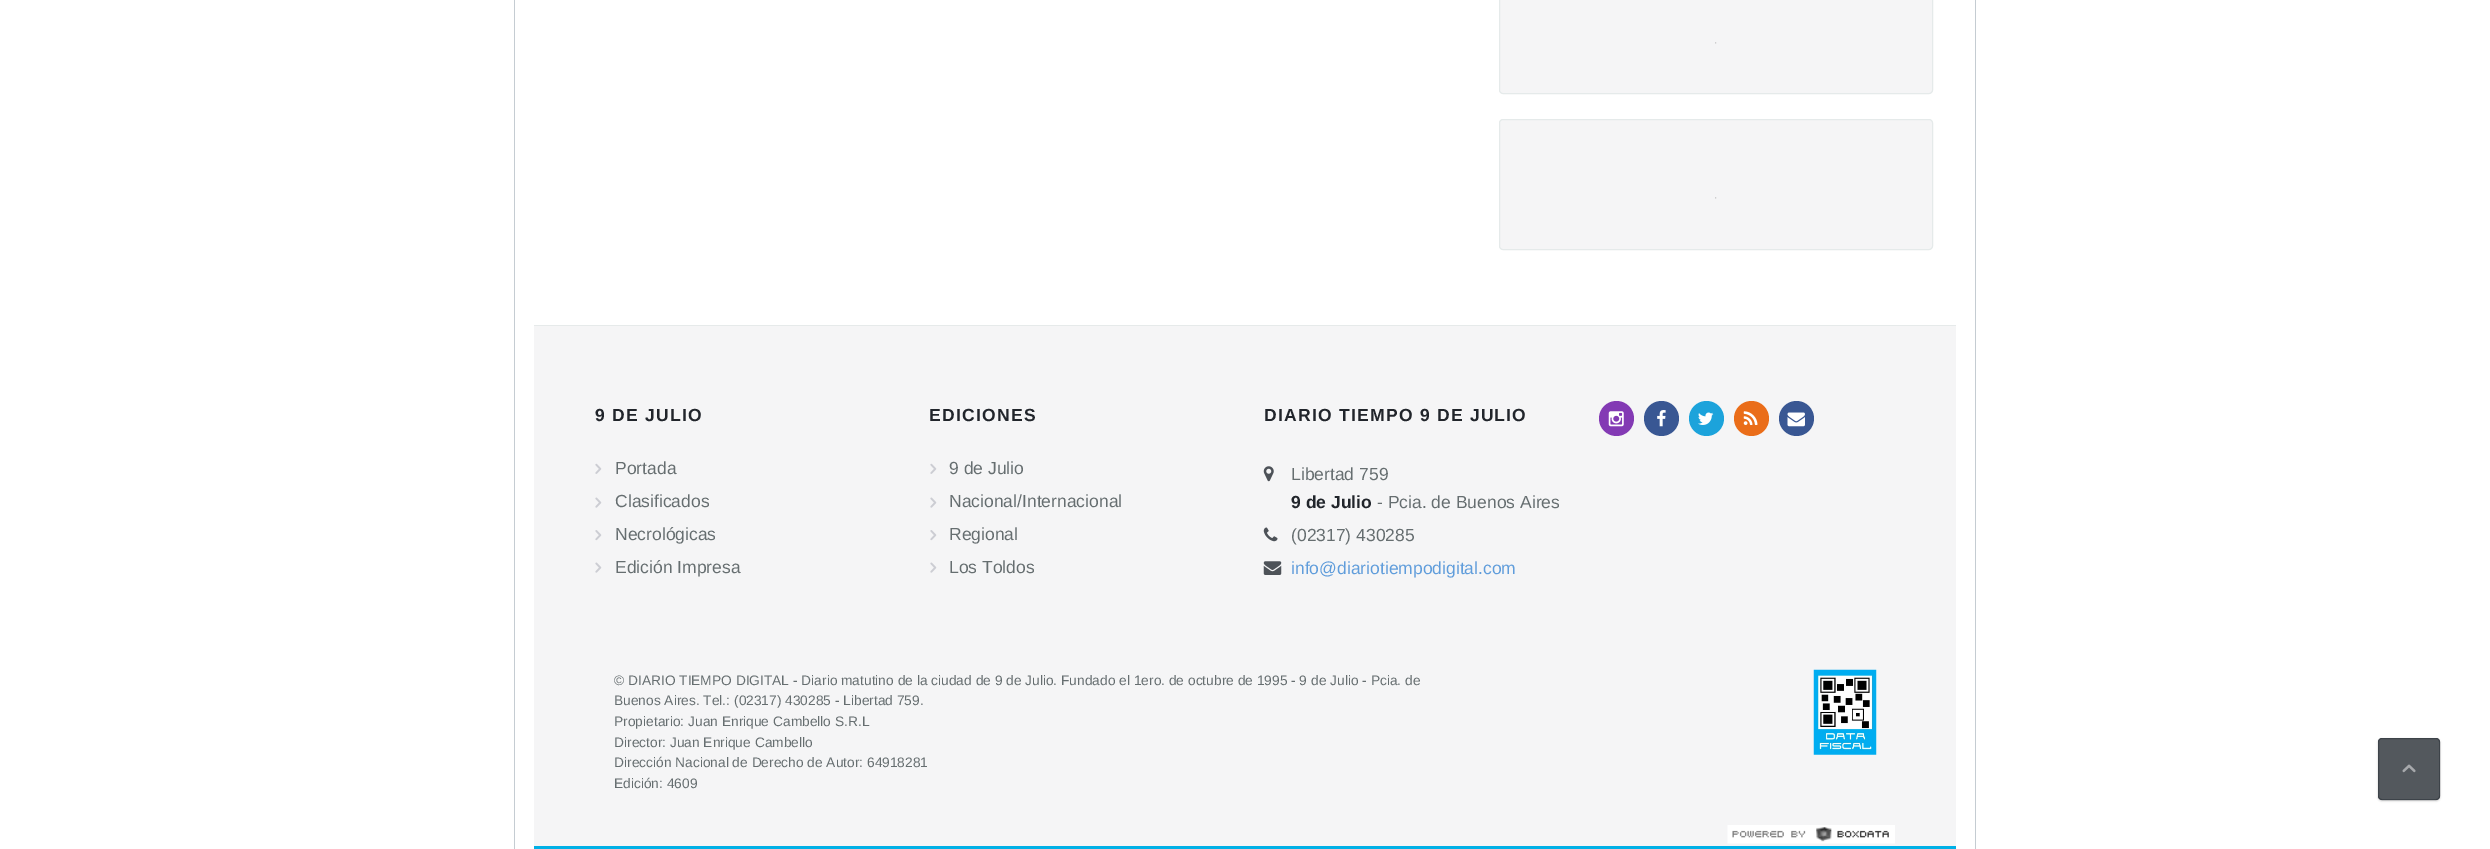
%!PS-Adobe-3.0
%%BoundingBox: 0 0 2490 849
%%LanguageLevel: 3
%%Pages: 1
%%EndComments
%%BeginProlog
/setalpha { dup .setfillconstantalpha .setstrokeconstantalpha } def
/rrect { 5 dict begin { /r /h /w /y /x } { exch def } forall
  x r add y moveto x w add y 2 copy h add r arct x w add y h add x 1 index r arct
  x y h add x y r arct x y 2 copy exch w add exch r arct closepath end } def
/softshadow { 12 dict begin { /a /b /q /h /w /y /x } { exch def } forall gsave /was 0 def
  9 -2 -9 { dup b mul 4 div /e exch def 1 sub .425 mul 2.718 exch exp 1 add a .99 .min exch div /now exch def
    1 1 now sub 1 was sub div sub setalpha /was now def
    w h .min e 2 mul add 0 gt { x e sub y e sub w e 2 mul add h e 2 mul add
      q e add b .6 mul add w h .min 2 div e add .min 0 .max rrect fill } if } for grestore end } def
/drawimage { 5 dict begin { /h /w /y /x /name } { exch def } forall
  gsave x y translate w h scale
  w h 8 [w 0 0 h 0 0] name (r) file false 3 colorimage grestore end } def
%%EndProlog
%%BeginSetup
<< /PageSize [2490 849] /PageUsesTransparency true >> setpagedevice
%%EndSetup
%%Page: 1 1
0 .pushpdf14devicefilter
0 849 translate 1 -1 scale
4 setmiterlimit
1 setgray
0 0 2490 849 rectfill
0.773 0.8 0.824 setrgbcolor
1975 0 1 849 rectfill
514 0 1 849 rectfill
0.961 0.961 0.965 setrgbcolor
1499.5 -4.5 433 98 3.5 rrect gsave fill grestore
0.898 0.918 0.918 setrgbcolor
stroke
(images/1.raw) 1715 42 2 2 drawimage
0.961 0.961 0.965 setrgbcolor
1499.5 119.5 433 130 3.5 rrect gsave fill grestore
0.898 0.918 0.918 setrgbcolor
stroke
(images/1.raw) 1715 197 2 2 drawimage
0.961 0.961 0.965 setrgbcolor
534 326 1422 520 rectfill
0.902 0.918 0.918 setrgbcolor
534 325 1422 1 rectfill
(images/2.raw) 595 463 7 11 drawimage
(images/3.raw) 595 497 7 11 drawimage
(images/4.raw) 595 530 7 11 drawimage
(images/3.raw) 595 562 7 11 drawimage
(images/2.raw) 930 463 7 11 drawimage
(images/3.raw) 930 497 7 11 drawimage
(images/4.raw) 930 530 7 11 drawimage
(images/3.raw) 930 562 7 11 drawimage
(images/5.raw) 1263 466 11 16 drawimage
(images/6.raw) 1263 527 15 15 drawimage
(images/7.raw) 1263 561 19 14 drawimage
0.514 0.227 0.706 setrgbcolor
newpath 1616.5 418.5 17.5 0 360 arc closepath fill
(images/8.raw) 1608 411 16 16 drawimage
0.224 0.341 0.576 setrgbcolor
newpath 1661.5 418.5 17.5 0 360 arc closepath fill
(images/9.raw) 1657 410 9 17 drawimage
0.11 0.639 0.859 setrgbcolor
newpath 1706.5 418.5 17.5 0 360 arc closepath fill
(images/10.raw) 1698 412 16 13 drawimage
0.918 0.427 0.098 setrgbcolor
newpath 1751.5 418.5 17.5 0 360 arc closepath fill
(images/11.raw) 1743 411 15 14 drawimage
0.224 0.341 0.576 setrgbcolor
newpath 1796.5 418.5 17.5 0 360 arc closepath fill
(images/12.raw) 1787 412 18 15 drawimage
0 0.69 0.902 setrgbcolor
534 846 1422 3 rectfill
(images/13.raw) 1813 669 64 86 drawimage
(images/14.raw) 1727 825 168 19 drawimage
gsave
newpath 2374 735 moveto 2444 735 lineto 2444 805 lineto 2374 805 lineto closepath 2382 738 moveto 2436 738 lineto 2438 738 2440 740 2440 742 curveto 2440 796 lineto 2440 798 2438 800 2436 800 curveto 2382 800 lineto 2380 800 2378 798 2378 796 curveto 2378 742 lineto 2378 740 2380 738 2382 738 curveto closepath eoclip newpath
0 setgray
2378 739 62 62 4 1 0.2 softshadow
grestore
0.8 setalpha
0.157 0.18 0.208 setrgbcolor
2378 738 62 62 4 rrect fill
0.5 setalpha
2378.5 738.5 61 61 3.5 rrect stroke
1 setalpha
(images/15.raw) 2402 764 14 9 drawimage
/LiberationSans-Bold [17.5 0 0 -17.5 0 0] selectfont
0.129 0.145 0.169 setrgbcolor
595 421 moveto 1.25 0 (9 DE JULIO) ashow
/LiberationSans-Regular [17.5 0 0 -17.5 0 0] selectfont
0.4 0.431 0.439 setrgbcolor
615 474 moveto (Portada) show
615 507 moveto (Clasificados) show
615 540 moveto (Necrológicas) show
615 573 moveto (Edición Impresa) show
/LiberationSans-Bold [17.5 0 0 -17.5 0 0] selectfont
0.129 0.145 0.169 setrgbcolor
929 421 moveto 1.25 0 (EDICIONES) ashow
/LiberationSans-Regular [17.5 0 0 -17.5 0 0] selectfont
0.4 0.431 0.439 setrgbcolor
949 474 moveto (9 de Julio) show
949 507 moveto (Nacional/Internacional) show
949 540 moveto (Regional) show
949 573 moveto (Los Toldos) show
/LiberationSans-Bold [17.5 0 0 -17.5 0 0] selectfont
0.129 0.145 0.169 setrgbcolor
1264 421 moveto 1.25 0 (DIARIO TIEMPO 9 DE JULIO) ashow
/LiberationSans-Regular [17.5 0 0 -17.5 0 0] selectfont
0.4 0.431 0.439 setrgbcolor
1291 480 moveto (Libertad 759) show
/LiberationSans-Bold [17.5 0 0 -17.5 0 0] selectfont
0.129 0.145 0.169 setrgbcolor
1291 508 moveto (9 de Julio) show
/LiberationSans-Regular [17.5 0 0 -17.5 0 0] selectfont
0.4 0.431 0.439 setrgbcolor
1377 508 moveto (- Pcia. de Buenos Aires) show
1291 541 moveto (\(02317\) 430285) show
0.376 0.616 0.859 setrgbcolor
1291 574 moveto (info@diariotiempodigital.com) show
/LiberationSans-Regular [13.75 0 0 -13.75 0 0] selectfont
0.4 0.431 0.439 setrgbcolor
614 685 moveto (© DIARIO TIEMPO DIGITAL - Diario matutino de la ciudad de 9 de Julio. Fundado el 1ero. de octubre de 1995 - 9 de Julio - Pcia. de) show
614 705 moveto (Buenos Aires. Tel.: \(02317\) 430285 - Libertad 759.) show
614 726 moveto (Propietario: Juan Enrique Cambello S.R.L) show
614 747 moveto (Director: Juan Enrique Cambello) show
614 767 moveto (Dirección Nacional de Derecho de Autor: 64918281) show
614 788 moveto (Edición: 4609) show
.poppdf14devicefilter showpage
%%EOF
